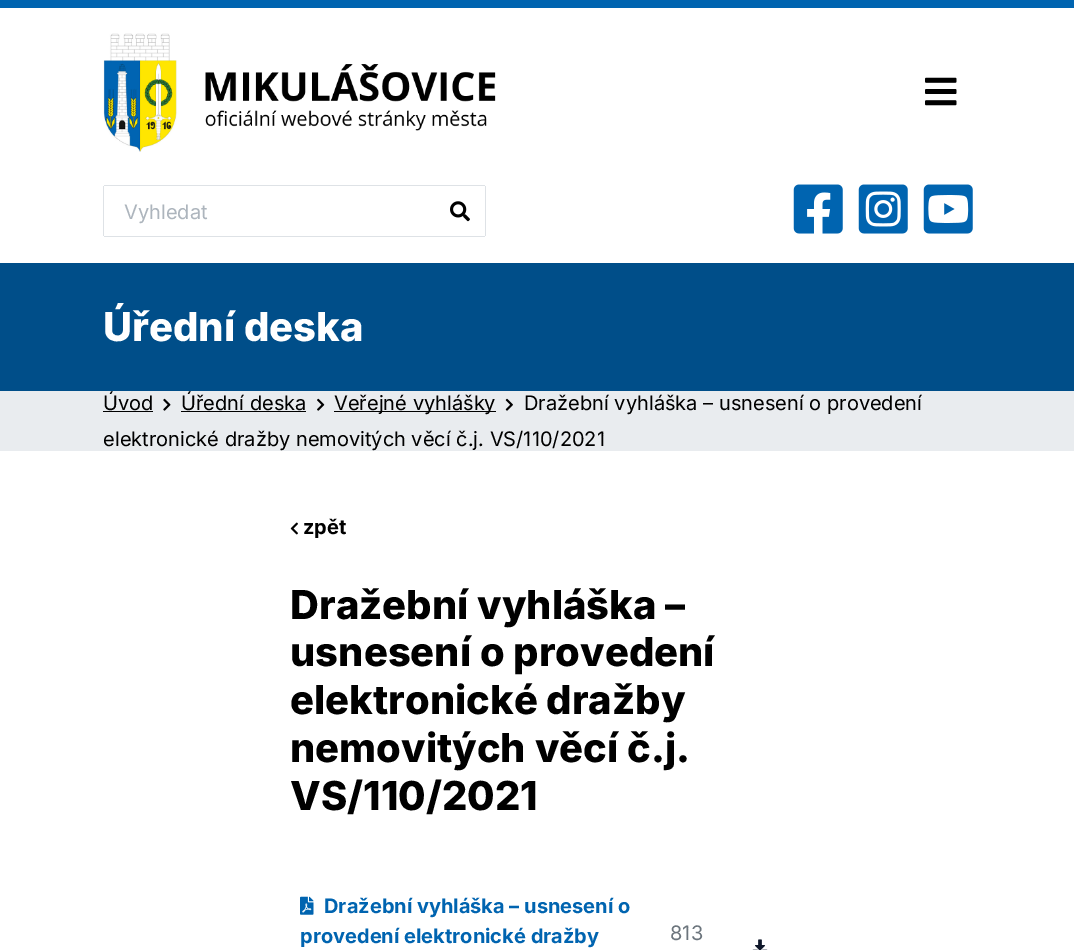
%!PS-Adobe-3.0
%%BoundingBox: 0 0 1074 950
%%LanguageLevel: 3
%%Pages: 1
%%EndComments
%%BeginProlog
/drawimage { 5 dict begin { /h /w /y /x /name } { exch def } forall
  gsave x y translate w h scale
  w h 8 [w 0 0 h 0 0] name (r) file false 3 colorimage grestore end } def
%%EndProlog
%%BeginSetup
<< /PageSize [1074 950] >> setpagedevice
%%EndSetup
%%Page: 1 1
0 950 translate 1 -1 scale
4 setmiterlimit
1 setgray
0 0 1074 950 rectfill
0 0.392 0.69 setrgbcolor
0 0 1074 8 rectfill
(images/1.raw) 103 33 393 119 drawimage
(images/2.raw) 925 77 32 29 drawimage
0.871 0.886 0.902 setrgbcolor
104 185 381 1 rectfill
104 236 381 1 rectfill
103 186 1 50 rectfill
485 186 1 50 rectfill
(images/3.raw) 450 201 20 21 drawimage
(images/4.raw) 793 184 50 50 drawimage
(images/5.raw) 858 184 50 50 drawimage
(images/6.raw) 923 184 50 50 drawimage
0 0.306 0.537 setrgbcolor
0 263 1074 128 rectfill
0.914 0.925 0.937 setrgbcolor
0 391 1074 60 rectfill
0 setgray
103 411 50 1 rectfill
(images/7.raw) 163 398 8 13 drawimage
181 411 125 1 rectfill
(images/8.raw) 317 398 8 13 drawimage
334 411 162 1 rectfill
(images/9.raw) 505 398 8 13 drawimage
(images/10.raw) 290 522 8 13 drawimage
(images/11.raw) 300 896 14 19 drawimage
(images/12.raw) 752 939 16 11 drawimage
/Inter-Regular [20 0 0 -20 0 0] selectfont
0.678 0.71 0.741 setrgbcolor
124 219 moveto (Vyhledat) show
/Inter-ExtraBold [40 0 0 -40 0 0] selectfont
1 setgray
103 341 moveto (Úřední deska) show
/Inter-Regular [20 0 0 -20 0 0] selectfont
0 setgray
103 410 moveto (Úvod) show
181 410 moveto (Úřední deska) show
334 410 moveto (Veřejné vyhlášky) show
524 410 moveto (Dražební vyhláška – usnesení o provedení) show
103 446 moveto (elektronické dražby nemovitých věcí č.j. VS/110/2021) show
/Inter-Bold [20 0 0 -20 0 0] selectfont
303 534 moveto (zpět) show
/Inter-ExtraBold [39.9 0 0 -39.9 0 0] selectfont
290 619 moveto (Dražební vyhláška –) show
290 666 moveto (usnesení o provedení) show
290 714 moveto (elektronické dražby) show
290 762 moveto (nemovitých věcí č.j.) show
290 810 moveto (VS/110/2021) show
/Inter-Bold [20 0 0 -20 0 0] selectfont
0 0.392 0.69 setrgbcolor
324 913 moveto (Dražební vyhláška – usnesení o) show
300 943 moveto (provedení elektronické dražby) show
/Inter-Regular [20 0 0 -20 0 0] selectfont
0.424 0.459 0.49 setrgbcolor
670 940 moveto (813) show
showpage
%%EOF
